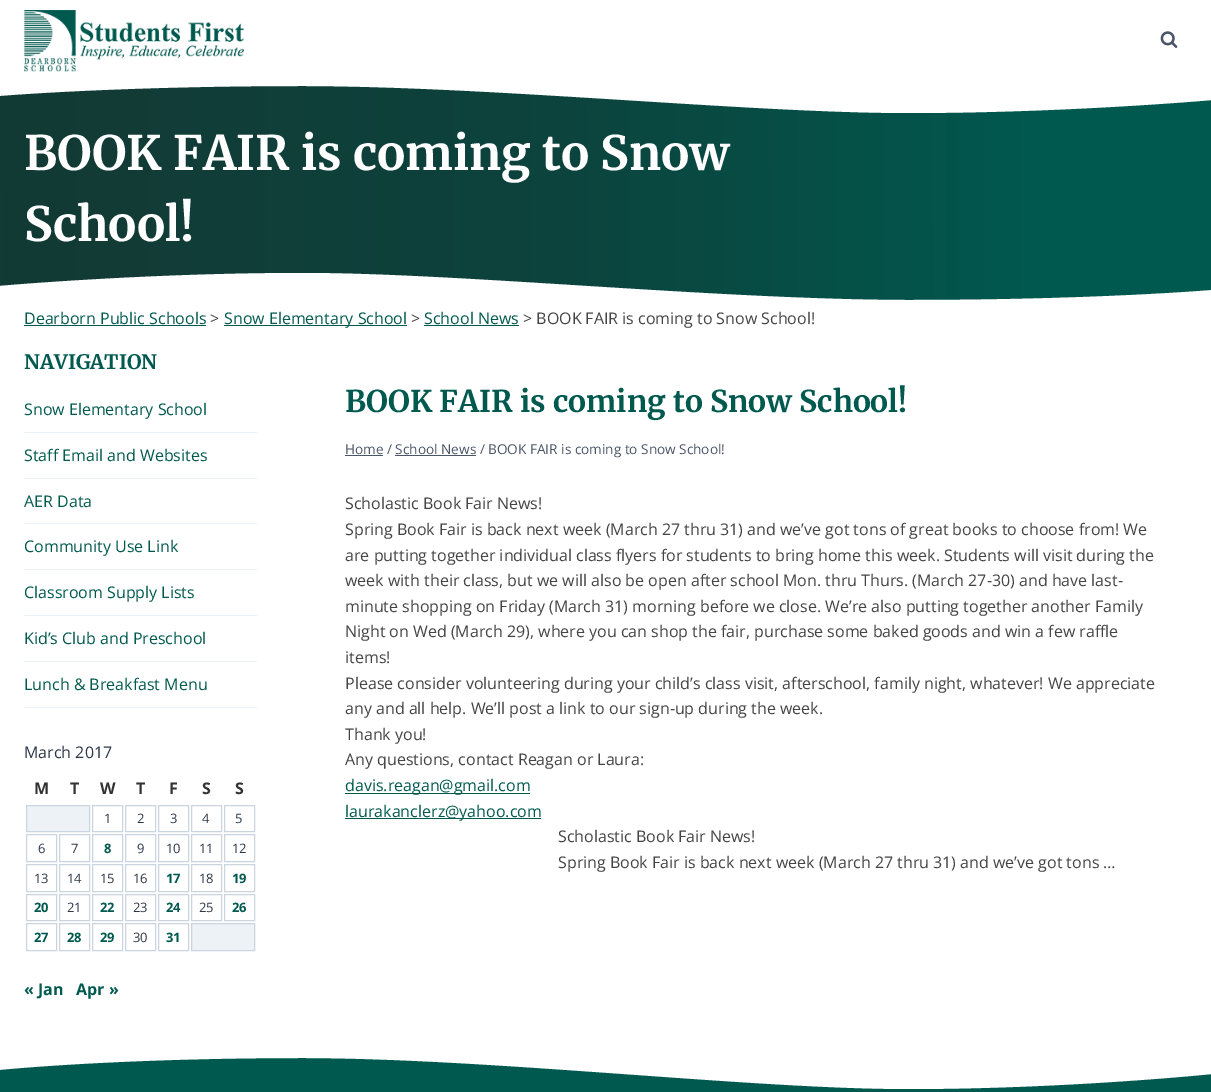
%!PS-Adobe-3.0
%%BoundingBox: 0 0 1211 1092
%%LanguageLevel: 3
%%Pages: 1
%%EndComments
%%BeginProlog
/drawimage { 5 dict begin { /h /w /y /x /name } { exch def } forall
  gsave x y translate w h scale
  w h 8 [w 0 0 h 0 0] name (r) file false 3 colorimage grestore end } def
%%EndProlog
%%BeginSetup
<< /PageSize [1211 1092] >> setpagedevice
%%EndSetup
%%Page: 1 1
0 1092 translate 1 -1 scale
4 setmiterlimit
1 setgray
0 0 1211 1092 rectfill
(images/1.raw) 24 10 220 62 drawimage
(images/2.raw) 1160 31 18 17 drawimage
gsave newpath 0 86 moveto 1211 86 lineto 1211 300 lineto 0 300 lineto closepath clip newpath
<< /ShadingType 2 /ColorSpace /DeviceRGB /Coords [0 194 1211 193] /Extend [true true] /Function << /FunctionType 3 /Domain [0 1] /Functions [<< /FunctionType 2 /Domain [0 1] /C0 [0.075 0.227 0.208] /C1 [0.067 0.239 0.22] /N 1 >> << /FunctionType 2 /Domain [0 1] /C0 [0.067 0.239 0.22] /C1 [0.051 0.263 0.239] /N 1 >> << /FunctionType 2 /Domain [0 1] /C0 [0.051 0.263 0.239] /C1 [0 0.349 0.31] /N 1 >> << /FunctionType 2 /Domain [0 1] /C0 [0 0.349 0.31] /C1 [0 0.349 0.31] /N 1 >>] /Bounds [0.18 0.45 0.87] /Encode [0 1 0 1 0 1 0 1] >> >> shfill grestore
newpath 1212 100 moveto 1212 100 1066 113 908 113 curveto 751 113 490 86 302 86 curveto 114 86 -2 96 -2 96 curveto -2 79 lineto 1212 79 lineto closepath fill
newpath -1 286 moveto -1 286 145 273 303 273 curveto 460 273 721 300 909 300 curveto 1097 300 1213 290 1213 290 curveto 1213 307 lineto -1 307 lineto closepath fill
0 0.349 0.31 setrgbcolor
24 325 182 1 rectfill
224 325 183 1 rectfill
424 325 95 1 rectfill
0.929 0.949 0.969 setrgbcolor
24 432 233 1 rectfill
24 478 233 1 rectfill
24 523 233 1 rectfill
24 569 233 1 rectfill
24 615 233 1 rectfill
24 661 233 1 rectfill
24 707 233 1 rectfill
newpath 26.5 805.5 moveto 89.5 805.5 lineto 89.5 831.5 lineto 26.5 831.5 lineto closepath gsave fill grestore
0.796 0.835 0.878 setrgbcolor
stroke
92.5 805.5 30 26 rectstroke
125.5 805.5 30 26 rectstroke
158.5 805.5 30 26 rectstroke
191.5 805.5 30 26 rectstroke
224.5 805.5 30 26 rectstroke
26.5 834.5 30 27 rectstroke
59.5 834.5 30 27 rectstroke
92.5 834.5 30 27 rectstroke
125.5 834.5 30 27 rectstroke
158.5 834.5 30 27 rectstroke
191.5 834.5 30 27 rectstroke
224.5 834.5 30 27 rectstroke
26.5 864.5 30 27 rectstroke
59.5 864.5 30 27 rectstroke
92.5 864.5 30 27 rectstroke
125.5 864.5 30 27 rectstroke
158.5 864.5 30 27 rectstroke
191.5 864.5 30 27 rectstroke
224.5 864.5 30 27 rectstroke
26.5 894.5 30 26 rectstroke
59.5 894.5 30 26 rectstroke
92.5 894.5 30 26 rectstroke
125.5 894.5 30 26 rectstroke
158.5 894.5 30 26 rectstroke
191.5 894.5 30 26 rectstroke
224.5 894.5 30 26 rectstroke
26.5 923.5 30 27 rectstroke
59.5 923.5 30 27 rectstroke
92.5 923.5 30 27 rectstroke
125.5 923.5 30 27 rectstroke
158.5 923.5 30 27 rectstroke
0.929 0.949 0.969 setrgbcolor
newpath 191.5 923.5 moveto 254.5 923.5 lineto 254.5 950.5 lineto 191.5 950.5 lineto closepath gsave fill grestore
0.796 0.835 0.878 setrgbcolor
stroke
0.29 0.333 0.408 setrgbcolor
345 455 38 1 rectfill
395 455 81 1 rectfill
0 0.349 0.31 setrgbcolor
345 793 185 1 rectfill
345 818 196 1 rectfill
0 1058 1211 34 rectfill
1 setgray
newpath 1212 1074 moveto 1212 1074 1066 1089 908 1089 curveto 751 1089 490 1058 302 1058 curveto 114 1058 -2 1070 -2 1070 curveto -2 1050 lineto 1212 1050 lineto closepath fill
/Merriweather-Light [47.4 0 0 -47.4 0 0] selectfont
24 170 moveto (BOOK FAIR is coming to Snow) show
24 241 moveto (School!) show
/OpenSans-Regular [16 0 0 -16 0 0] selectfont
0 0.349 0.31 setrgbcolor
24 324 moveto (Dearborn Public Schools) show
0.267 setgray
210 324 moveto (>) show
0 0.349 0.31 setrgbcolor
224 324 moveto (Snow Elementary School) show
0.267 setgray
411 324 moveto (>) show
0 0.349 0.31 setrgbcolor
424 324 moveto (School News) show
0.267 setgray
523 324 moveto (> BOOK FAIR is coming to Snow School!) show
/Merriweather-Light [20 0 0 -20 0 0] selectfont
0 0.349 0.31 setrgbcolor
24 369 moveto (NAVIGATION) show
/OpenSans-Regular [16 0 0 -16 0 0] selectfont
24 415 moveto (Snow Elementary School) show
24 461 moveto (Staff Email and Websites) show
24 507 moveto (AER Data) show
24 552 moveto (Community Use Link) show
24 598 moveto (Classroom Supply Lists) show
24 644 moveto (Kid’s Club and Preschool) show
24 690 moveto (Lunch & Breakfast Menu) show
0.176 0.216 0.282 setrgbcolor
24 758 moveto (March 2017) show
/OpenSans-Bold [16 0 0 -16 0 0] selectfont
0.2 setgray
34 794 moveto (M) show
70 794 moveto (T) show
100 794 moveto (W) show
136 794 moveto (T) show
169 794 moveto (F) show
202 794 moveto (S) show
235 794 moveto (S) show
/OpenSans-Regular [13 0 0 -13 0 0] selectfont
0.176 0.216 0.282 setrgbcolor
104 823 moveto (1) show
137 823 moveto (2) show
170 823 moveto (3) show
202 823 moveto (4) show
235 823 moveto (5) show
38 853 moveto (6) show
71 853 moveto (7) show
/OpenSans-Bold [13 0 0 -13 0 0] selectfont
0 0.349 0.31 setrgbcolor
104 853 moveto (8) show
/OpenSans-Regular [13 0 0 -13 0 0] selectfont
0.176 0.216 0.282 setrgbcolor
137 853 moveto (9) show
166 853 moveto (10) show
199 853 moveto (11) show
232 853 moveto (12) show
34 883 moveto (13) show
67 883 moveto (14) show
100 883 moveto (15) show
133 883 moveto (16) show
/OpenSans-Bold [13 0 0 -13 0 0] selectfont
0 0.349 0.31 setrgbcolor
166 883 moveto (17) show
/OpenSans-Regular [13 0 0 -13 0 0] selectfont
0.176 0.216 0.282 setrgbcolor
199 883 moveto (18) show
/OpenSans-Bold [13 0 0 -13 0 0] selectfont
0 0.349 0.31 setrgbcolor
232 883 moveto (19) show
34 912 moveto (20) show
/OpenSans-Regular [13 0 0 -13 0 0] selectfont
0.176 0.216 0.282 setrgbcolor
67 912 moveto (21) show
/OpenSans-Bold [13 0 0 -13 0 0] selectfont
0 0.349 0.31 setrgbcolor
100 912 moveto (22) show
/OpenSans-Regular [13 0 0 -13 0 0] selectfont
0.176 0.216 0.282 setrgbcolor
133 912 moveto (23) show
/OpenSans-Bold [13 0 0 -13 0 0] selectfont
0 0.349 0.31 setrgbcolor
166 912 moveto (24) show
/OpenSans-Regular [13 0 0 -13 0 0] selectfont
0.176 0.216 0.282 setrgbcolor
199 912 moveto (25) show
/OpenSans-Bold [13 0 0 -13 0 0] selectfont
0 0.349 0.31 setrgbcolor
232 912 moveto (26) show
34 942 moveto (27) show
67 942 moveto (28) show
100 942 moveto (29) show
/OpenSans-Regular [13 0 0 -13 0 0] selectfont
0.176 0.216 0.282 setrgbcolor
133 942 moveto (30) show
/OpenSans-Bold [13 0 0 -13 0 0] selectfont
0 0.349 0.31 setrgbcolor
166 942 moveto (31) show
/OpenSans-Bold [16 0 0 -16 0 0] selectfont
24 995 moveto (« Jan) show
76 995 moveto (Apr ») show
/Merriweather-Light [30 0 0 -30 0 0] selectfont
345 412 moveto (BOOK FAIR is coming to Snow School!) show
/OpenSans-Regular [13.6 0 0 -13.6 0 0] selectfont
0.29 0.333 0.408 setrgbcolor
345 454 moveto (Home / School News / BOOK FAIR is coming to Snow School!) show
/OpenSans-Regular [16 0 0 -16 0 0] selectfont
0.267 setgray
345 509 moveto (Scholastic Book Fair News!) show
345 535 moveto (Spring Book Fair is back next week \(March 27 thru 31\) and we’ve got tons of great books to choose from! We) show
345 561 moveto (are putting together individual class flyers for students to bring home this week. Students will visit during the) show
345 586 moveto (week with their class, but we will also be open after school Mon. thru Thurs. \(March 27-30\) and have last-) show
345 612 moveto (minute shopping on Friday \(March 31\) morning before we close. We’re also putting together another Family) show
345 637 moveto (Night on Wed \(March 29\), where you can shop the fair, purchase some baked goods and win a few raffle) show
345 663 moveto (items!) show
345 689 moveto (Please consider volunteering during your child’s class visit, afterschool, family night, whatever! We appreciate) show
345 714 moveto (any and all help. We’ll post a link to our sign-up during the week.) show
345 740 moveto (Thank you!) show
345 765 moveto (Any questions, contact Reagan or Laura:) show
0 0.349 0.31 setrgbcolor
345 791 moveto (davis.reagan@gmail.com) show
345 817 moveto (laurakanclerz@yahoo.com) show
0.267 setgray
558 842 moveto (Scholastic Book Fair News!) show
558 868 moveto (Spring Book Fair is back next week \(March 27 thru 31\) and we’ve got tons …) show
showpage
%%EOF
